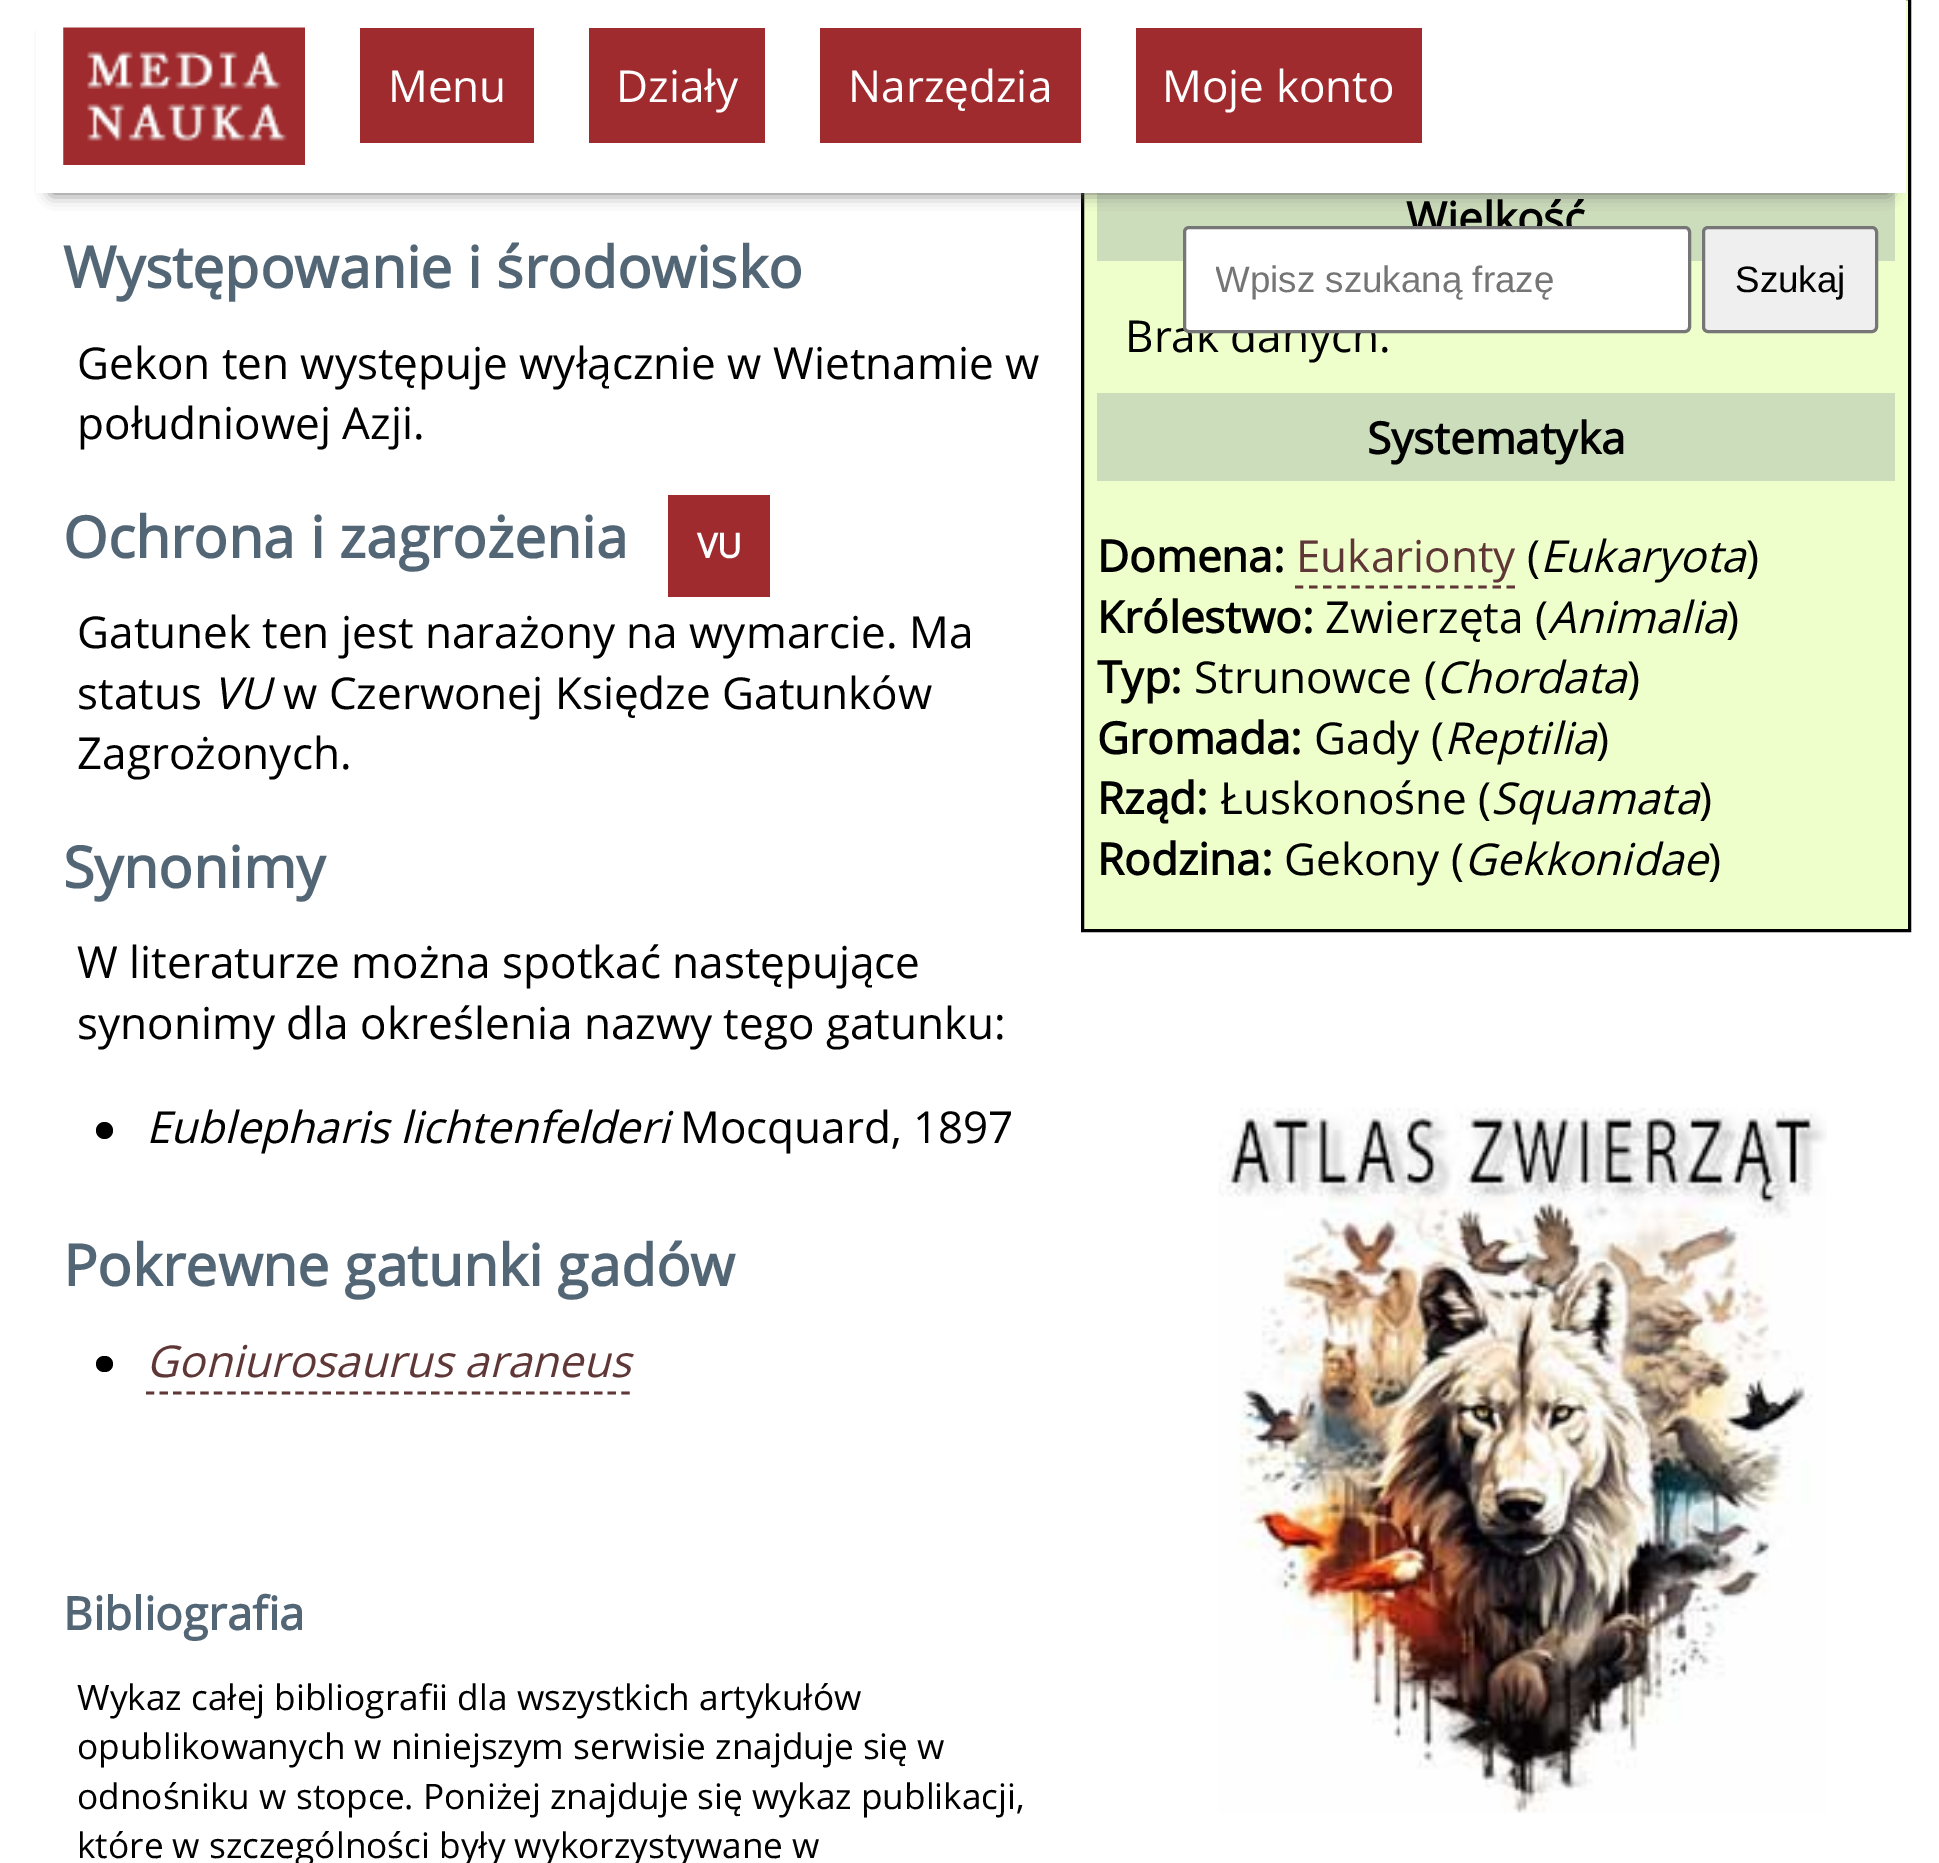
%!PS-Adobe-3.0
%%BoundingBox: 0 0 1939 1863
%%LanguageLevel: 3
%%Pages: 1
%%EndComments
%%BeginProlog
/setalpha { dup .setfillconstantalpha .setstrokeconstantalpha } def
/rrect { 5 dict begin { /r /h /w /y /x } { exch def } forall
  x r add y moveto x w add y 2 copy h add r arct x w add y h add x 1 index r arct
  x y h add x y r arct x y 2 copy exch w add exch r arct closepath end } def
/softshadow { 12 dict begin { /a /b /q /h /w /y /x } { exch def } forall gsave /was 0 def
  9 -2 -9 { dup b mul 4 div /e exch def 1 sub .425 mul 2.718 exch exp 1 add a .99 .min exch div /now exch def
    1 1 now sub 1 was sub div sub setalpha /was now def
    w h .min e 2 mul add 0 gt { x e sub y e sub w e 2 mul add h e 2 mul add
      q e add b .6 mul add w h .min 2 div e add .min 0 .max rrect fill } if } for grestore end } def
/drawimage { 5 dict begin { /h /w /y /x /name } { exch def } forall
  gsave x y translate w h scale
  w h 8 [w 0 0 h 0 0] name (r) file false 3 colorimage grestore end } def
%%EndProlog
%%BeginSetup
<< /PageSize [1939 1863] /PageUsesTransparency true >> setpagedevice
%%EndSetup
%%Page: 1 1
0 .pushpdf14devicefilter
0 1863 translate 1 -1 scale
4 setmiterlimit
1 setgray
0 0 1939 1863 rectfill
0.933 1 0.8 setrgbcolor
newpath 1082.5 -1.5 moveto 1909.5 -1.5 lineto 1909.5 930.5 lineto 1082.5 930.5 lineto closepath gsave fill grestore
0 setgray
3 setlinewidth
stroke
0.8 0.867 0.733 setrgbcolor
1097 193 798 68 rectfill
0.4 setgray
52 33 1837 160 0 8 1 softshadow
1 setgray
36 0 1870 193 rectfill
(images/1.raw) 63 27 243 138 drawimage
305 0 1172 171 8 rrect fill
0.627 0.169 0.18 setrgbcolor
360 28 174 115 rectfill
589 28 176 115 rectfill
820 28 261 115 rectfill
1136 28 286 115 rectfill
0.937 setgray
1703.5 227.5 173 104 4.5 rrect gsave fill grestore
0.463 setgray
stroke
0.627 0.169 0.18 setrgbcolor
668 495 102 102 rectfill
0 setgray
newpath 104.5 1130.5 8.5 0 360 arc closepath fill
96 1356 17 16 8 rrect fill
0.376 0.216 0.216 setrgbcolor
2.8 setlinewidth
[8.25 5.33] 0 setdash
newpath 146 1393 moveto 630 1393 lineto stroke
0.8 0.867 0.733 setrgbcolor
1097 393 798 88 rectfill
0.376 0.216 0.216 setrgbcolor
[8.25 5.86] 0 setdash
newpath 1295 587 moveto 1515 587 lineto stroke
(images/2.raw) 1218 1107 609 706 drawimage
/OpenSans-Regular [44 0 0 -44 0 0] selectfont
1 setgray
388 102 moveto (Menu) show
616 102 moveto (Działy) show
848 102 moveto (Narzędzia) show
1162 102 moveto (Moje konto) show
/LiberationSans-Regular [36.75 0 0 -36.75 0 0] selectfont
0 setgray
1735 292 moveto (Szukaj) show
/OpenSans-Bold [57.25 0 0 -57.25 0 0] selectfont
0.325 0.4 0.459 setrgbcolor
63 288 moveto (Występowanie i środowisko) show
/OpenSans-Regular [44 0 0 -44 0 0] selectfont
0 setgray
77 379 moveto (Gekon ten występuje wyłącznie w Wietnamie w) show
77 439 moveto (południowej Azji.) show
/OpenSans-Bold [57.25 0 0 -57.25 0 0] selectfont
0.325 0.4 0.459 setrgbcolor
63 558 moveto (Ochrona i zagrożenia) show
/OpenSans-Bold [34 0 0 -34 0 0] selectfont
1 setgray
697 558 moveto (VU) show
/OpenSans-Regular [44 0 0 -44 0 0] selectfont
0 setgray
77 648 moveto (Gatunek ten jest narażony na wymarcie. Ma) show
77 709 moveto (status) show
/OpenSans-Italic [44 0 0 -44 0 0] selectfont
213 709 moveto (VU) show
/OpenSans-Regular [44 0 0 -44 0 0] selectfont
283 709 moveto (w Czerwonej Księdze Gatunków) show
77 769 moveto (Zagrożonych.) show
/OpenSans-Bold [57.25 0 0 -57.25 0 0] selectfont
0.325 0.4 0.459 setrgbcolor
63 888 moveto (Synonimy) show
/OpenSans-Regular [44 0 0 -44 0 0] selectfont
0 setgray
77 978 moveto (W literaturze można spotkać następujące) show
77 1039 moveto (synonimy dla określenia nazwy tego gatunku:) show
/OpenSans-Italic [44 0 0 -44 0 0] selectfont
146 1143 moveto (Eublepharis lichtenfelderi) show
/OpenSans-Regular [44 0 0 -44 0 0] selectfont
680 1143 moveto (Mocquard, 1897) show
/OpenSans-Bold [57.25 0 0 -57.25 0 0] selectfont
0.325 0.4 0.459 setrgbcolor
63 1286 moveto (Pokrewne gatunki gadów) show
/OpenSans-Italic [44 0 0 -44 0 0] selectfont
0.376 0.216 0.216 setrgbcolor
146 1377 moveto (Goniurosaurus araneus) show
/OpenSans-Bold [45.75 0 0 -45.75 0 0] selectfont
0.325 0.4 0.459 setrgbcolor
63 1630 moveto (Bibliografia) show
/OpenSans-Regular [35.2 0 0 -35.2 0 0] selectfont
0 setgray
77 1710 moveto (Wykaz całej bibliografii dla wszystkich artykułów) show
77 1759 moveto (opublikowanych w niniejszym serwisie znajduje się w) show
77 1809 moveto (odnośniku w stopce. Poniżej znajduje się wykaz publikacji,) show
77 1858 moveto (które w szczególności były wykorzystywane w) show
/OpenSans-Bold [44 0 0 -44 0 0] selectfont
1406 234 moveto (Wielkość) show
/OpenSans-Regular [44 0 0 -44 0 0] selectfont
1125 352 moveto (Brak danych.) show
1 setgray
1184.5 227.5 505 104 4.5 rrect gsave fill grestore
0.463 setgray
3 setlinewidth
[] 0 setdash
stroke
gsave
1216 259 442 41 rectclip
/LiberationSans-Regular [36.75 0 0 -36.75 0 0] selectfont
0.459 setgray
1215 292 moveto (Wpisz szukaną frazę) show
grestore
/OpenSans-Bold [44 0 0 -44 0 0] selectfont
0 setgray
1367 454 moveto (Systematyka) show
1097 572 moveto (Domena:) show
/OpenSans-Regular [44 0 0 -44 0 0] selectfont
0.376 0.216 0.216 setrgbcolor
1296 572 moveto (Eukarionty) show
0 setgray
1527 572 moveto (\() show
/OpenSans-Italic [44 0 0 -44 0 0] selectfont
1540 572 moveto (Eukaryota) show
/OpenSans-Regular [44 0 0 -44 0 0] selectfont
1746 572 moveto (\)) show
/OpenSans-Bold [44 0 0 -44 0 0] selectfont
1097 633 moveto (Królestwo:) show
/OpenSans-Regular [44 0 0 -44 0 0] selectfont
1325 633 moveto (Zwierzęta \() show
/OpenSans-Italic [44 0 0 -44 0 0] selectfont
1548 633 moveto (Animalia) show
/OpenSans-Regular [44 0 0 -44 0 0] selectfont
1726 633 moveto (\)) show
/OpenSans-Bold [44 0 0 -44 0 0] selectfont
1097 693 moveto (Typ:) show
/OpenSans-Regular [44 0 0 -44 0 0] selectfont
1194 693 moveto (Strunowce \() show
/OpenSans-Italic [44 0 0 -44 0 0] selectfont
1436 693 moveto (Chordata) show
/OpenSans-Regular [44 0 0 -44 0 0] selectfont
1627 693 moveto (\)) show
/OpenSans-Bold [44 0 0 -44 0 0] selectfont
1097 754 moveto (Gromada:) show
/OpenSans-Regular [44 0 0 -44 0 0] selectfont
1314 754 moveto (Gady \() show
/OpenSans-Italic [44 0 0 -44 0 0] selectfont
1444 754 moveto (Reptilia) show
/OpenSans-Regular [44 0 0 -44 0 0] selectfont
1596 754 moveto (\)) show
/OpenSans-Bold [44 0 0 -44 0 0] selectfont
1097 814 moveto (Rząd:) show
/OpenSans-Regular [44 0 0 -44 0 0] selectfont
1220 814 moveto (Łuskonośne \() show
/OpenSans-Italic [44 0 0 -44 0 0] selectfont
1491 814 moveto (Squamata) show
/OpenSans-Regular [44 0 0 -44 0 0] selectfont
1699 814 moveto (\)) show
/OpenSans-Bold [44 0 0 -44 0 0] selectfont
1097 875 moveto (Rodzina:) show
/OpenSans-Regular [44 0 0 -44 0 0] selectfont
1284 875 moveto (Gekony \() show
/OpenSans-Italic [44 0 0 -44 0 0] selectfont
1464 875 moveto (Gekkonidae) show
/OpenSans-Regular [44 0 0 -44 0 0] selectfont
1708 875 moveto (\)) show
.poppdf14devicefilter showpage
%%EOF
